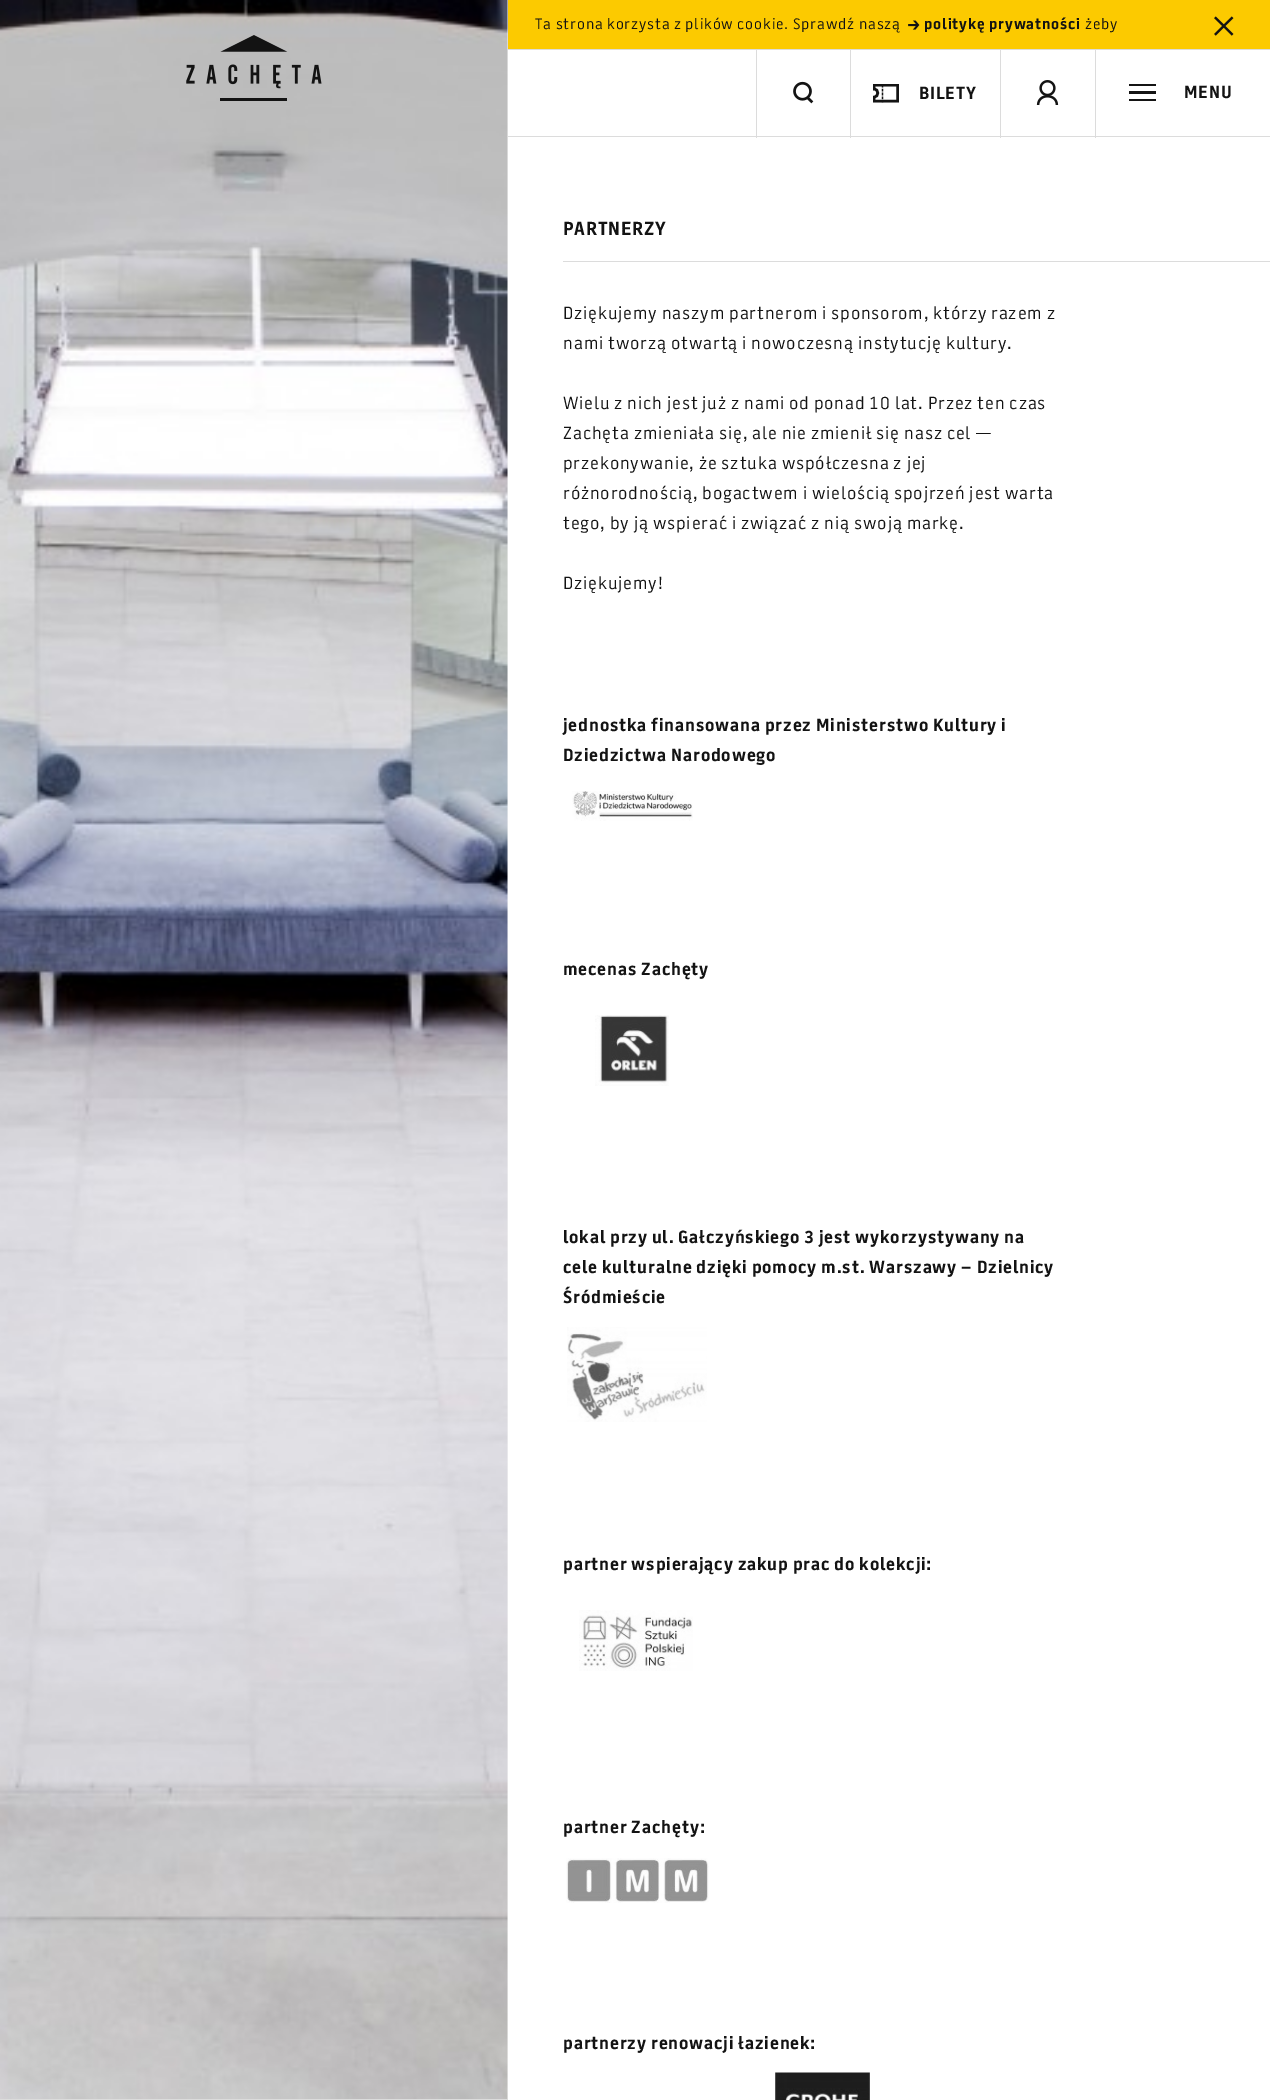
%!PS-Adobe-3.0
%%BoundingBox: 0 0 1270 2100
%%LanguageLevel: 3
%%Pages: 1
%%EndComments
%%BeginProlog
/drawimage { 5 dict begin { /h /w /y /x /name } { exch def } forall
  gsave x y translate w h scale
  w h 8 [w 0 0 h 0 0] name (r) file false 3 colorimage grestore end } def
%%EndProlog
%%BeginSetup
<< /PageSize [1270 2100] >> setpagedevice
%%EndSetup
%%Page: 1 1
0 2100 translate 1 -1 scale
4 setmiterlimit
1 setgray
0 0 1270 2100 rectfill
0.988 0.792 0 setrgbcolor
508 0 762 49 rectfill
0.863 setgray
508 49 762 1 rectfill
(images/1.raw) 908 20 12 10 drawimage
(images/2.raw) 1214 16 20 20 drawimage
0.961 setgray
507 0 1 2099 rectfill
(images/6.raw) 0 0 508 2099 drawimage
(images/3.raw) 186 35 136 66 drawimage
0.863 setgray
756 50 1 88 rectfill
(images/4.raw) 793 81 21 23 drawimage
850 50 1 88 rectfill
gsave
873 84 26 19 rectclip
0.078 setgray
2.6 setlinewidth
newpath 897.5 85 moveto 897.5 101 lineto 874 101 lineto 874 97 lineto 879 97 879 89 874 89 curveto 874 85 lineto closepath stroke
grestore
0.078 setgray
1.3 setlinewidth
2 setlinecap
[1.31 2.62] 0 setdash
newpath 882.5 85.5 moveto 882.5 101.5 lineto stroke
0.863 setgray
1000 50 1 88 rectfill
(images/5.raw) 1036 80 23 25 drawimage
1095 50 1 88 rectfill
0.078 setgray
1129 84 27 2 rectfill
1129 91 27 3 rectfill
1129 99 27 2 rectfill
0.863 setgray
508 136 762 1 rectfill
0 2099 508 1 rectfill
563 261 707 1 rectfill
(images/7.raw) 572 791 121 30 drawimage
(images/8.raw) 595 1015 74 71 drawimage
(images/9.raw) 567 1327 140 95 drawimage
(images/10.raw) 579 1610 114 61 drawimage
(images/11.raw) 566 1858 143 45 drawimage
(images/12.raw) 775 2072 95 28 drawimage
/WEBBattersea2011-Regular [15 0 0 -15 0 0] selectfont
0.075 setgray
535 29 moveto 0.88 0 (Ta strona korzysta z plików cookie. Sprawdź naszą) ashow
/WEBBattersea2011-Bold [15 0 0 -15 0 0] selectfont
924 29 moveto 0.88 0 (politykę prywatności) ashow
/WEBBattersea2011-Regular [15 0 0 -15 0 0] selectfont
1085 29 moveto 0.88 0 (żeby) ashow
/WEBBattersea2011-Bold [17.5 0 0 -17.5 0 0] selectfont
919 99 moveto 0.75 0 (BILETY) ashow
1184 98 moveto 0.88 0 (MENU) ashow
/WEBBattersea2011-Bold [18.75 0 0 -18.75 0 0] selectfont
563 235 moveto 0.88 0 (PARTNERZY) ashow
/WEBBattersea2011-Regular [17.5 0 0 -17.5 0 0] selectfont
563 319 moveto 0.88 0 (Dziękujemy naszym partnerom i sponsorom, którzy razem z) ashow
563 349 moveto 0.88 0 (nami tworzą otwartą i nowoczesną instytucję kultury.) ashow
563 409 moveto 0.88 0 (Wielu z nich jest już z nami od ponad 10 lat. Przez ten czas) ashow
563 439 moveto 0.88 0 (Zachęta zmieniała się, ale nie zmienił się nasz cel —) ashow
563 469 moveto 0.88 0 (przekonywanie, że sztuka współczesna z jej) ashow
563 499 moveto 0.88 0 (różnorodnością, bogactwem i wielością spojrzeń jest warta) ashow
563 529 moveto 0.88 0 (tego, by ją wspierać i związać z nią swoją markę.) ashow
563 589 moveto 0.88 0 (Dziękujemy!) ashow
/WEBBattersea2011-Bold [17.5 0 0 -17.5 0 0] selectfont
563 731 moveto 0.88 0 (jednostka finansowana przez Ministerstwo Kultury i) ashow
563 761 moveto 0.88 0 (Dziedzictwa Narodowego) ashow
563 975 moveto 0.88 0 (mecenas Zachęty) ashow
563 1243 moveto 0.88 0 (lokal przy ul. Gałczyńskiego 3 jest wykorzystywany na) ashow
563 1273 moveto 0.88 0 (cele kulturalne dzięki pomocy m.st. Warszawy – Dzielnicy) ashow
563 1303 moveto 0.88 0 (Śródmieście) ashow
563 1570 moveto 0.88 0 (partner wspierający zakup prac do kolekcji:) ashow
563 1833 moveto 0.88 0 (partner Zachęty:) ashow
563 2049 moveto 0.88 0 (partnerzy renowacji łazienek:) ashow
showpage
%%EOF
